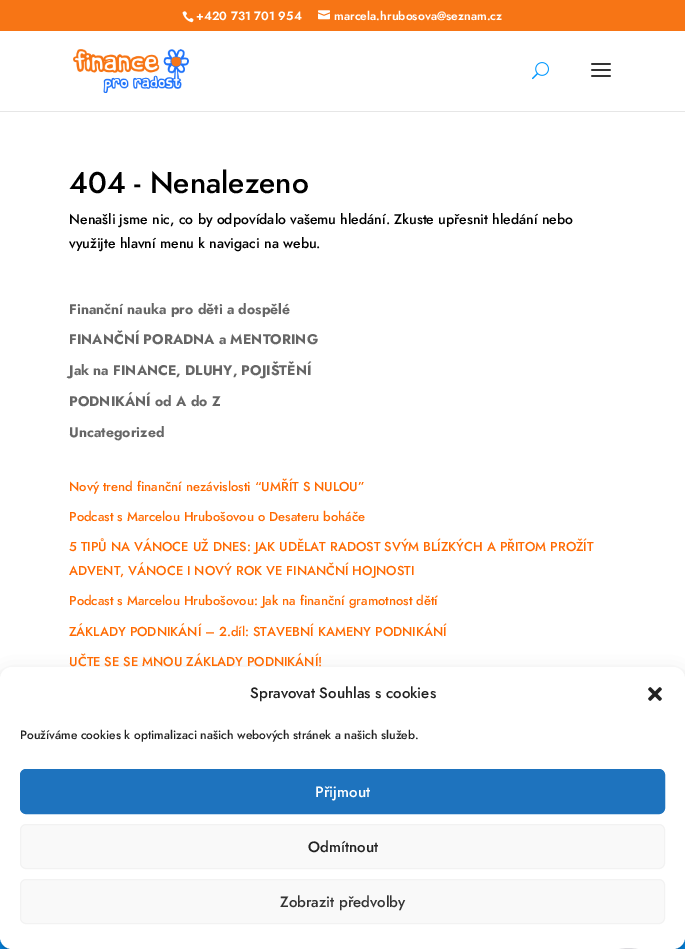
%!PS-Adobe-3.0
%%BoundingBox: 0 0 685 949
%%LanguageLevel: 3
%%Pages: 1
%%EndComments
%%BeginProlog
/setalpha { dup .setfillconstantalpha .setstrokeconstantalpha } def
/rrect { 5 dict begin { /r /h /w /y /x } { exch def } forall
  x r add y moveto x w add y 2 copy h add r arct x w add y h add x 1 index r arct
  x y h add x y r arct x y 2 copy exch w add exch r arct closepath end } def
/softshadow { 12 dict begin { /a /b /q /h /w /y /x } { exch def } forall gsave /was 0 def
  9 -2 -9 { dup b mul 4 div /e exch def 1 sub .425 mul 2.718 exch exp 1 add a .99 .min exch div /now exch def
    1 1 now sub 1 was sub div sub setalpha /was now def
    w h .min e 2 mul add 0 gt { x e sub y e sub w e 2 mul add h e 2 mul add
      q e add b .6 mul add w h .min 2 div e add .min 0 .max rrect fill } if } for grestore end } def
/drawimage { 5 dict begin { /h /w /y /x /name } { exch def } forall
  gsave x y translate w h scale
  w h 8 [w 0 0 h 0 0] name (r) file false 3 colorimage grestore end } def
%%EndProlog
%%BeginSetup
<< /PageSize [685 949] /PageUsesTransparency true >> setpagedevice
%%EndSetup
%%Page: 1 1
0 .pushpdf14devicefilter
0 949 translate 1 -1 scale
4 setmiterlimit
1 setgray
0 0 685 949 rectfill
0.969 0.459 0.082 setrgbcolor
0 0 685 31 rectfill
(images/1.raw) 182 11 12 12 drawimage
(images/2.raw) 318 10 12 10 drawimage
0.902 setgray
0 111 685 1 rectfill
(images/3.raw) 73 49 116 44 drawimage
(images/4.raw) 532 62 17 18 drawimage
(images/5.raw) 591 63 20 14 drawimage
(images/6.raw) 0 937 685 12 drawimage
0 setgray
0 673 685 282 12 3 0.23 softshadow
0 677 685 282 12 10 0.19 softshadow
1 setgray
0 667 685 282 12 rrect fill
(images/7.raw) 648 687 14 14 drawimage
0.118 0.451 0.745 setrgbcolor
20.5 769.5 644 44 5.5 rrect gsave fill grestore
stroke
0.976 setgray
20.5 824.5 644 44 5.5 rrect gsave fill grestore
0.949 setgray
stroke
0.976 setgray
20.5 879.5 644 44 5.5 rrect gsave fill grestore
0.949 setgray
stroke
0.859 0.855 0.871 setrgbcolor
587.5 948.5 82 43 41 rrect stroke
/Jost-SemiBold [12 0 0 -12 0 0] selectfont
1 setgray
196 20 moveto (+420 731 701 954) show
334 20 moveto (marcela.hrubosova@seznam.cz) show
/Jost-Medium [30 0 0 -30 0 0] selectfont
0 setgray
69 193 moveto (404 - Nenalezeno) show
/Jost-Medium [14 0 0 -14 0 0] selectfont
69 224 moveto (Nenašli jsme nic, co by odpovídalo vašemu hledání. Zkuste upřesnit hledání nebo) show
69 248 moveto (využijte hlavní menu k navigaci na webu.) show
/Jost-Bold [14 0 0 -14 0 0] selectfont
0.4 setgray
69 314 moveto (Finanční nauka pro děti a dospělé) show
69 344 moveto (FINANČNÍ PORADNA a MENTORING) show
69 375 moveto (Jak na FINANCE, DLUHY, POJIŠTĚNÍ) show
69 406 moveto (PODNIKÁNÍ od A do Z) show
69 437 moveto (Uncategorized) show
/Jost-Medium [13 0 0 -13 0 0] selectfont
1 0.412 0 setrgbcolor
69 491 moveto (Nový trend finanční nezávislosti “UMŘÍT S NULOU”) show
69 521 moveto (Podcast s Marcelou Hrubošovou o Desateru boháče) show
69 551 moveto (5 TIPŮ NA VÁNOCE UŽ DNES: JAK UDĚLAT RADOST SVÝM BLÍZKÝCH A PŘITOM PROŽÍT) show
69 575 moveto (ADVENT, VÁNOCE I NOVÝ ROK VE FINANČNÍ HOJNOSTI) show
69 605 moveto (Podcast s Marcelou Hrubošovou: Jak na finanční gramotnost dětí) show
69 636 moveto (ZÁKLADY PODNIKÁNÍ – 2.díl: STAVEBNÍ KAMENY PODNIKÁNÍ) show
69 666 moveto (UČTE SE SE MNOU ZÁKLADY PODNIKÁNÍ!) show
/Jost-Medium [15 0 0 -15 0 0] selectfont
0.133 setgray
250 698 moveto (Spravovat Souhlas s cookies) show
/Jost-Medium [12 0 0 -12 0 0] selectfont
20 739 moveto (Používáme cookies k optimalizaci našich webových stránek a našich služeb.) show
/Jost-Medium [15 0 0 -15 0 0] selectfont
1 setgray
315 797 moveto (Přijmout) show
0.133 setgray
308 852 moveto (Odmítnout) show
0.2 setgray
280 907 moveto (Zobrazit předvolby) show
.poppdf14devicefilter showpage
%%EOF
